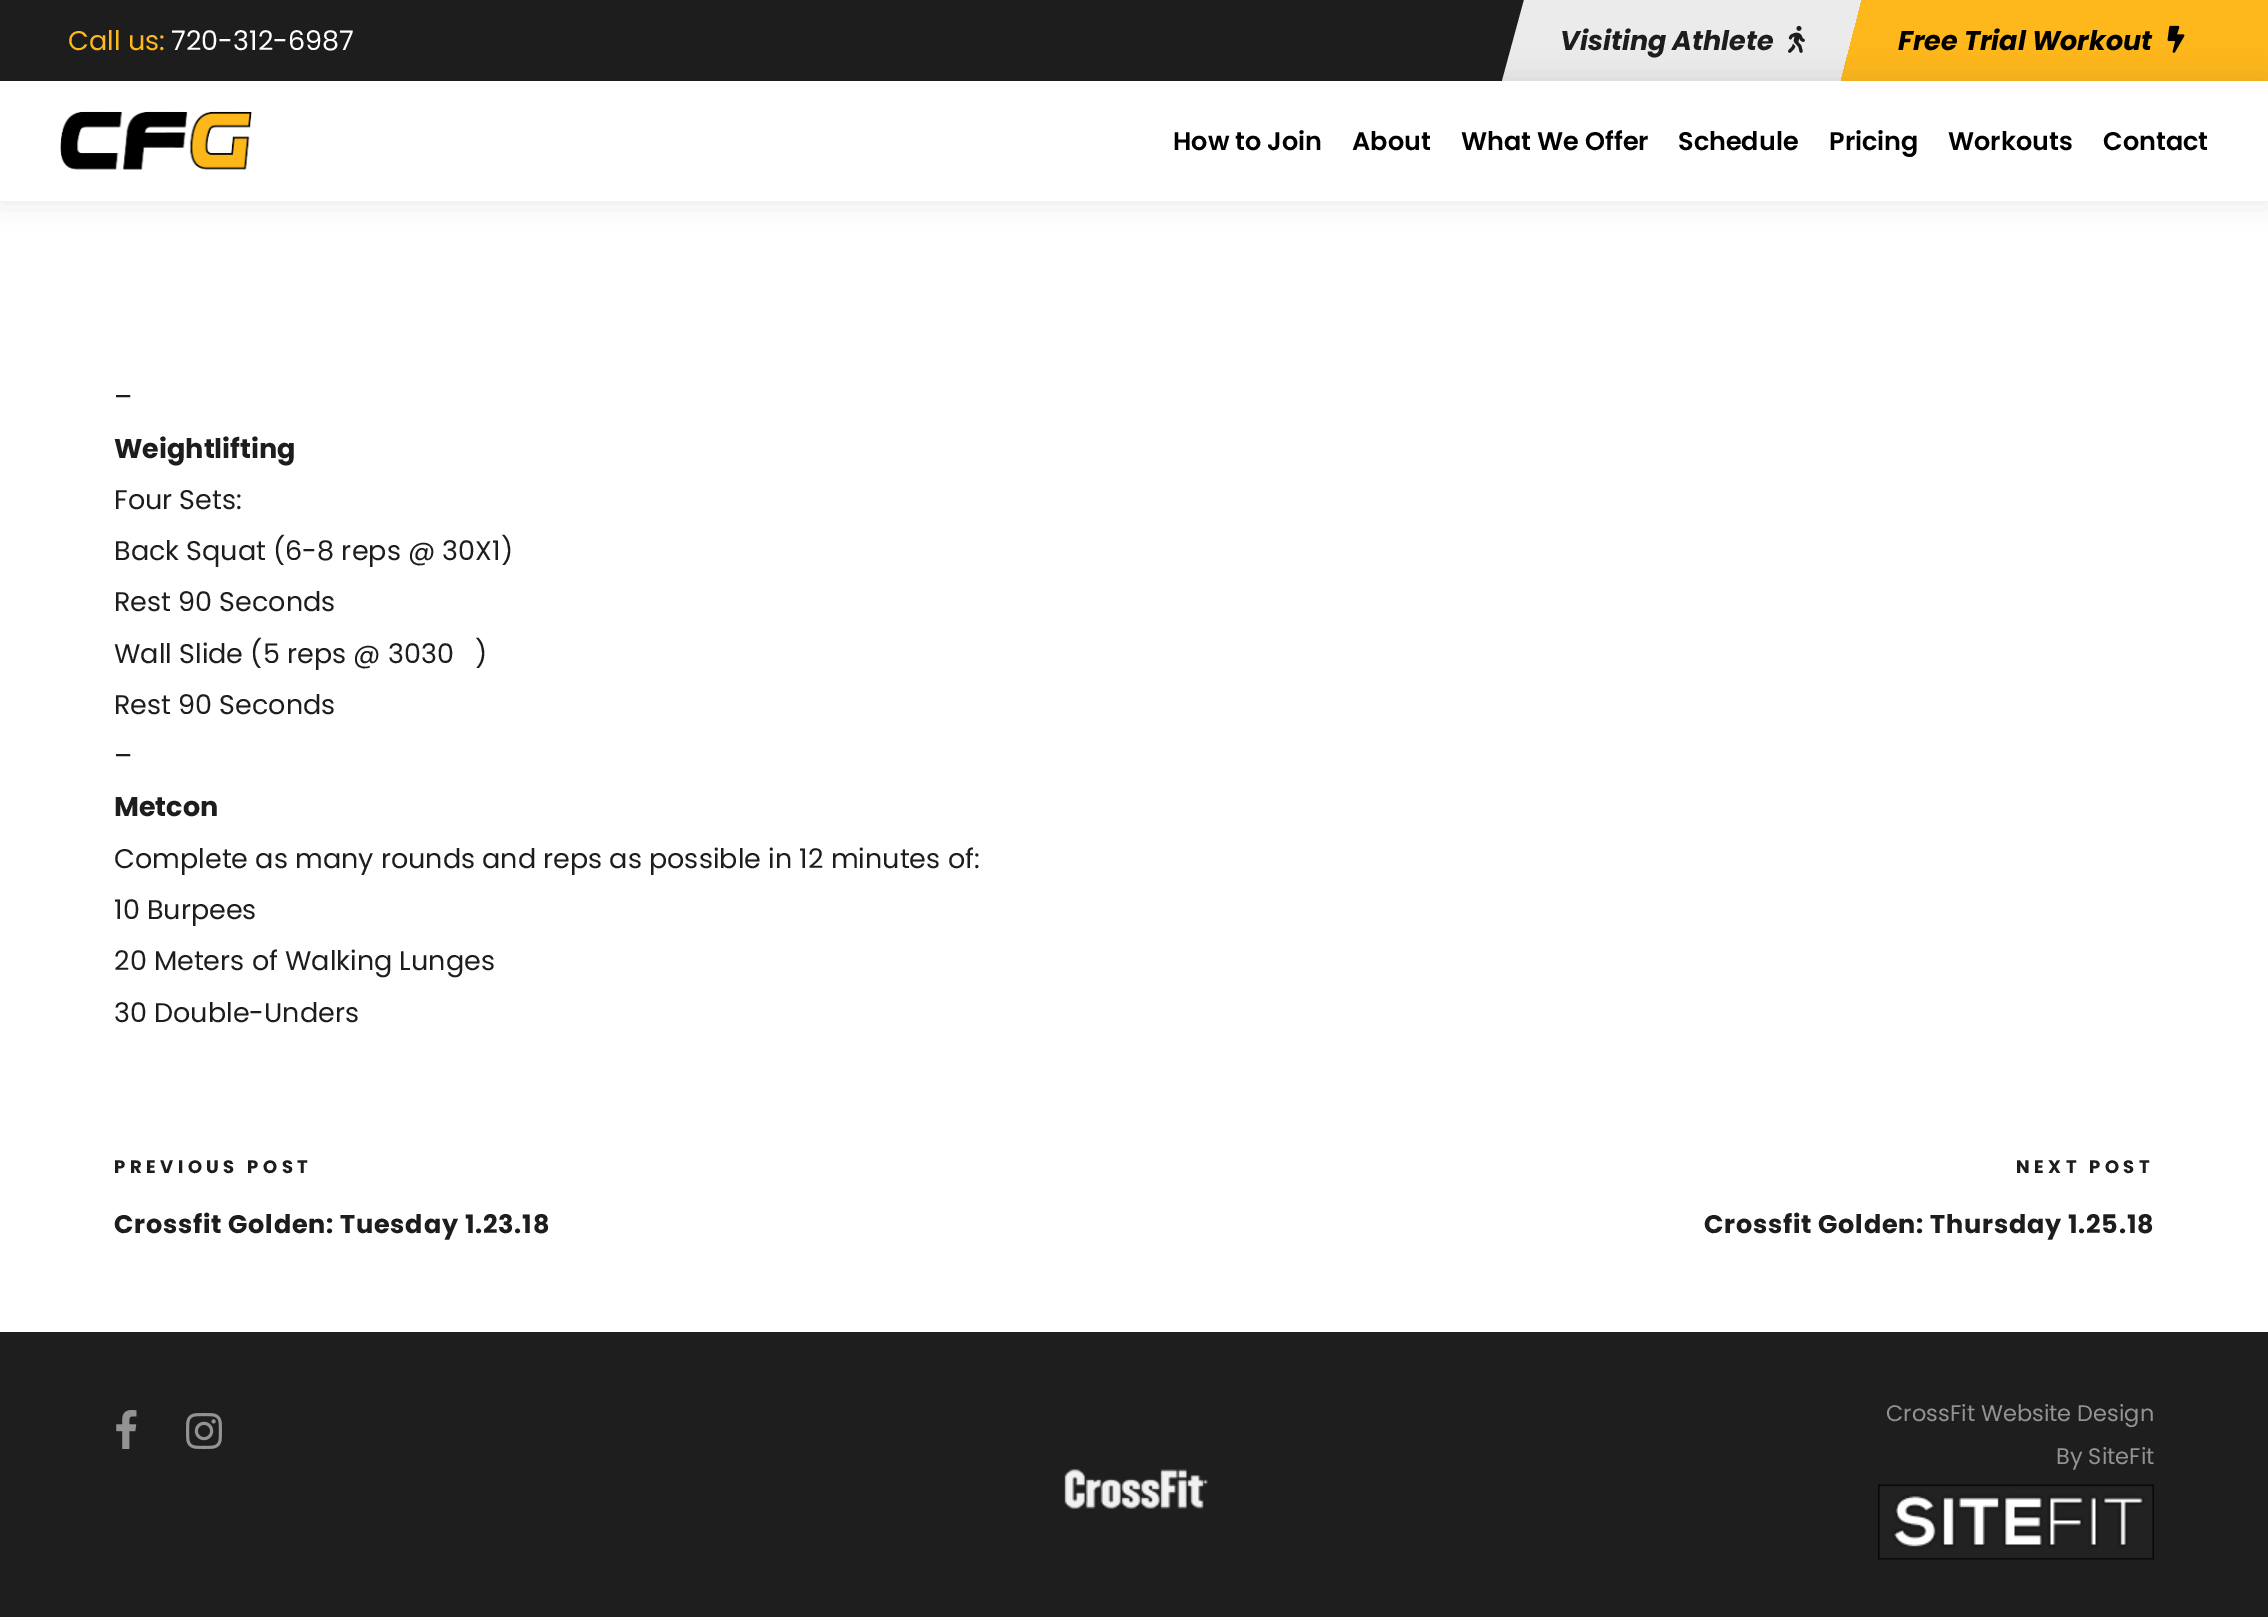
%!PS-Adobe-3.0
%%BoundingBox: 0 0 2268 1617
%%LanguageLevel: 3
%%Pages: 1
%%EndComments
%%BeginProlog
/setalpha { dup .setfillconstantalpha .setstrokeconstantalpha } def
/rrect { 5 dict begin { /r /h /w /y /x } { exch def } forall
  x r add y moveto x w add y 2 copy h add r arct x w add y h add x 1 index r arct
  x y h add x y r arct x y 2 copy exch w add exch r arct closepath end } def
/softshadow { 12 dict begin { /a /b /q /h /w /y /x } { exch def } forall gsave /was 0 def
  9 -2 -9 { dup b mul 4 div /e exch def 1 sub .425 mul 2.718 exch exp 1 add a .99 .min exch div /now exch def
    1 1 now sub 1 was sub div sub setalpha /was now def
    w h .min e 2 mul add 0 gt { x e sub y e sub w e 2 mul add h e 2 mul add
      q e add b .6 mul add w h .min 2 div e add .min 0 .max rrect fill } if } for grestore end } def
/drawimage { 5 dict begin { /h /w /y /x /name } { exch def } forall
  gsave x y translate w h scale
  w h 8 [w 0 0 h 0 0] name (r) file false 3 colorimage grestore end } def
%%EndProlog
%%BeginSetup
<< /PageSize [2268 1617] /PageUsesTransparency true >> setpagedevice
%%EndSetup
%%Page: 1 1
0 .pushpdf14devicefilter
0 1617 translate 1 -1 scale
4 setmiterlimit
1 setgray
0 0 2268 1617 rectfill
0.114 setgray
0 0 1524 81 rectfill
0.922 setgray
newpath 1524 0 moveto 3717 0 lineto 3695 81 lineto 1502 81 lineto closepath fill
(images/1.raw) 1788 25 17 28 drawimage
gsave newpath 1862 0 moveto 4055 0 lineto 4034 81 lineto 1841 81 lineto closepath clip newpath
<< /ShadingType 2 /ColorSpace /DeviceRGB /Coords [-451 41 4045 41] /Extend [true true] /Function << /FunctionType 3 /Domain [0 1] /Functions [<< /FunctionType 2 /Domain [0 1] /C0 [1 1 1] /C1 [0.8 0.8 0.8] /N 1 >> << /FunctionType 2 /Domain [0 1] /C0 [0.996 0.722 0.11] /C1 [0.996 0.722 0.11] /N 1 >>] /Bounds [0.5] /Encode [0 1 0 1] >> >> shfill grestore
(images/2.raw) 2167 25 18 28 drawimage
0.118 setgray
0 1332 2268 285 rectfill
(images/3.raw) 116 1410 21 39 drawimage
(images/4.raw) 186 1413 36 36 drawimage
(images/5.raw) 1878 1484 276 76 drawimage
(images/6.raw) 1064 1469 144 40 drawimage
gsave
newpath 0 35 moveto 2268 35 lineto 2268 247 lineto 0 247 lineto closepath 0 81 moveto 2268 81 lineto 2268 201 lineto 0 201 lineto closepath eoclip newpath
0 setgray
0 81 2268 120 0 15 0.1 softshadow
grestore
(images/7.raw) 60 111 192 59 drawimage
/Poppins-Regular [27 0 0 -27 0 0] selectfont
0.996 0.722 0.11 setrgbcolor
68 50 moveto (Call us:) show
1 setgray
171 50 moveto (720-312-6987) show
/Poppins-BoldItalic [27 0 0 -27 0 0] selectfont
0.114 setgray
1560 50 moveto (Visiting Athlete) show
0 setgray
1898 50 moveto (Free Trial Workout) show
/Poppins-Regular [27 0 0 -27 0 0] selectfont
0.114 setgray
114 406 moveto (–) show
/Poppins-Bold [27 0 0 -27 0 0] selectfont
114 458 moveto (Weightlifting) show
/Poppins-Regular [27 0 0 -27 0 0] selectfont
114 509 moveto (Four Sets:) show
114 560 moveto (Back Squat \(6-8 reps @ 30X1\)) show
114 611 moveto (Rest 90 Seconds) show
114 663 moveto (Wall Slide \(5 reps @ 3030   \)) show
114 714 moveto (Rest 90 Seconds) show
114 765 moveto (–) show
/Poppins-Bold [27 0 0 -27 0 0] selectfont
114 816 moveto (Metcon) show
/Poppins-Regular [27 0 0 -27 0 0] selectfont
114 868 moveto (Complete as many rounds and reps as possible in 12 minutes of:) show
114 919 moveto (10 Burpees) show
114 970 moveto (20 Meters of Walking Lunges) show
114 1022 moveto (30 Double-Unders) show
/Poppins-Bold [18 0 0 -18 0 0] selectfont
114 1173 moveto 4.5 0 (PREVIOUS POST) ashow
/Poppins-Bold [25.5 0 0 -25.5 0 0] selectfont
114 1233 moveto 0.75 0 (Crossfit Golden: Tuesday 1.23.18) ashow
/Poppins-Bold [18 0 0 -18 0 0] selectfont
2016 1173 moveto 4.5 0 (NEXT POST) ashow
/Poppins-Bold [25.5 0 0 -25.5 0 0] selectfont
1704 1233 moveto 0.75 0 (Crossfit Golden: Thursday 1.25.18) ashow
/Poppins-Regular [22.5 0 0 -22.5 0 0] selectfont
0.576 setgray
1886 1421 moveto (CrossFit Website Design) show
2056 1464 moveto (By SiteFit) show
/Poppins-SemiBold [25.5 0 0 -25.5 0 0] selectfont
0 setgray
1173 150 moveto (How to Join) show
1352 150 moveto (About) show
1461 150 moveto (What We Offer) show
1678 150 moveto (Schedule) show
1829 150 moveto (Pricing) show
1948 150 moveto (Workouts) show
2103 150 moveto (Contact) show
.poppdf14devicefilter showpage
%%EOF
